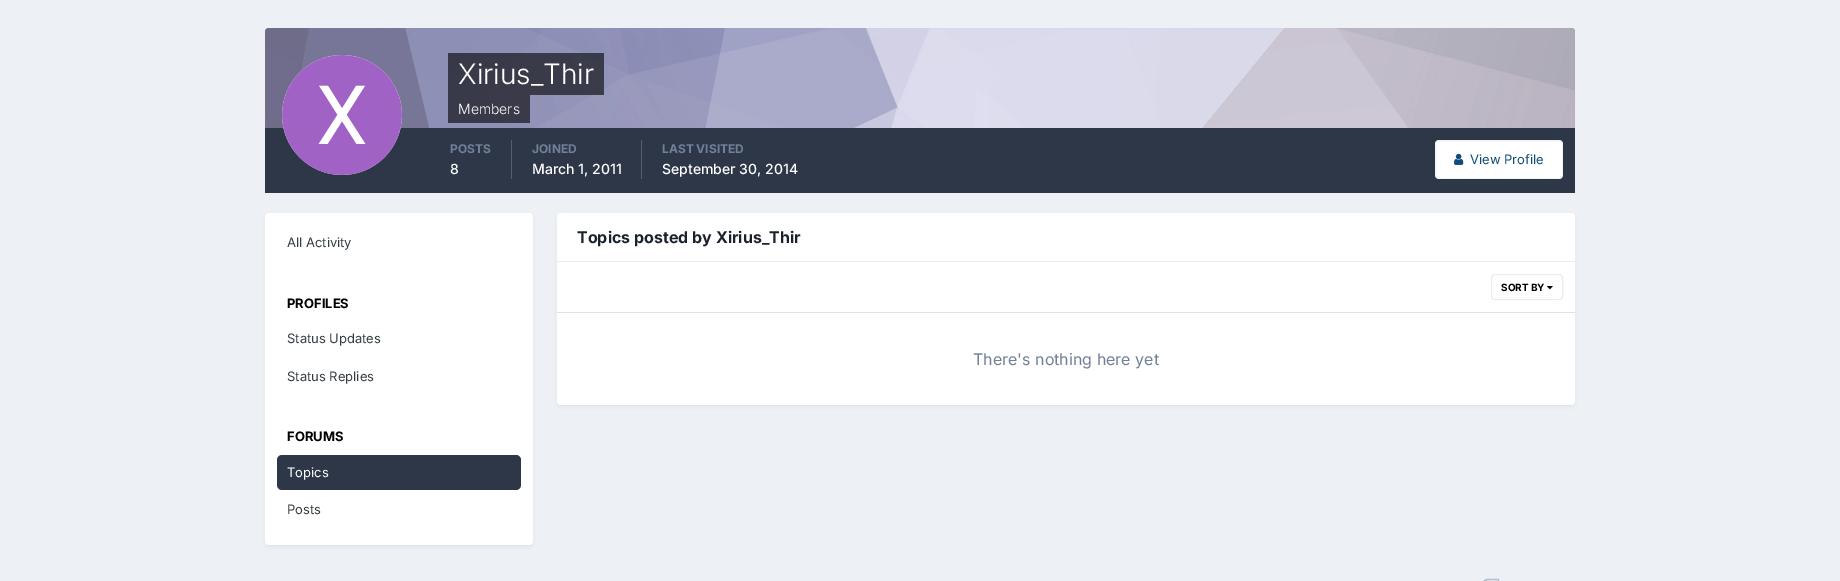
%!PS-Adobe-3.0
%%BoundingBox: 0 0 1840 581
%%LanguageLevel: 3
%%Pages: 1
%%EndComments
%%BeginProlog
/setalpha { dup .setfillconstantalpha .setstrokeconstantalpha } def
/rrect { 5 dict begin { /r /h /w /y /x } { exch def } forall
  x r add y moveto x w add y 2 copy h add r arct x w add y h add x 1 index r arct
  x y h add x y r arct x y 2 copy exch w add exch r arct closepath end } def
/softshadow { 12 dict begin { /a /b /q /h /w /y /x } { exch def } forall gsave /was 0 def
  9 -2 -9 { dup b mul 4 div /e exch def 1 sub .425 mul 2.718 exch exp 1 add a .99 .min exch div /now exch def
    1 1 now sub 1 was sub div sub setalpha /was now def
    w h .min e 2 mul add 0 gt { x e sub y e sub w e 2 mul add h e 2 mul add
      q e add b .6 mul add w h .min 2 div e add .min 0 .max rrect fill } if } for grestore end } def
/drawimage { 5 dict begin { /h /w /y /x /name } { exch def } forall
  gsave x y translate w h scale
  w h 8 [w 0 0 h 0 0] name (r) file false 3 colorimage grestore end } def
%%EndProlog
%%BeginSetup
<< /PageSize [1840 581] /PageUsesTransparency true >> setpagedevice
%%EndSetup
%%Page: 1 1
0 .pushpdf14devicefilter
0 581 translate 1 -1 scale
4 setmiterlimit
0.929 0.941 0.957 setrgbcolor
0 0 1840 581 rectfill
0.639 0.6 1 setrgbcolor
newpath 269 28 moveto 1571 28 lineto 1573 28 1575 30 1575 32 curveto 1575 128 lineto 265 128 lineto 265 32 lineto 265 30 267 28 269 28 curveto closepath fill
(images/1.raw) 265 28 1310 100 drawimage
0.176 0.216 0.282 setrgbcolor
265 128 1310 65 rectfill
(images/2.raw) 282 55 120 120 drawimage
0.6 setalpha
0 setgray
448 53 156 42 rectfill
448 95 82 28 rectfill
1 setalpha
0.341 0.373 0.427 setrgbcolor
511 140 1 39 rectfill
641 140 1 39 rectfill
1 setgray
1435 140 128 39 4 rrect fill
0.07 setalpha
0.055 0.298 0.475 setrgbcolor
1435.5 140.5 127 38 3.5 rrect stroke
1 setalpha
(images/3.raw) 1454 153 10 12 drawimage
0.176 0.216 0.282 setrgbcolor
266 216 266 330 3 2 0.1 softshadow
1 setgray
265 213 268 332 4 rrect fill
0.176 0.216 0.282 setrgbcolor
277 455 244 35 5 rrect fill
558 216 1016 190 3 2 0.1 softshadow
1 setgray
557 213 1018 192 4 rrect fill
newpath 561 213 moveto 1571 213 lineto 1573 213 1575 215 1575 217 curveto 1575 262 lineto 557 262 lineto 557 217 lineto 557 215 559 213 561 213 curveto closepath fill
0.918 0.925 0.937 setrgbcolor
557 261 1018 1 rectfill
0.882 0.886 0.89 setrgbcolor
557 312 1018 1 rectfill
(images/4.raw) 1547 286 6 4 drawimage
0.922 0.925 0.925 setrgbcolor
1491.5 274.5 71 25 3.5 rrect stroke
(images/5.raw) 1484 578 15 3 drawimage
/Inter-Light [28 0 0 -28 0 0] selectfont
1 setgray
458 84 moveto (Xirius_Thir) show
/Inter-Light [14 0 0 -14 0 0] selectfont
458 114 moveto (Members) show
/Inter-Bold [12 0 0 -12 0 0] selectfont
0.443 0.502 0.588 setrgbcolor
450 153 moveto (POSTS) show
/Inter-Medium [14 0 0 -14 0 0] selectfont
1 setgray
450 174 moveto (8) show
/Inter-Bold [12 0 0 -12 0 0] selectfont
0.443 0.502 0.588 setrgbcolor
532 153 moveto (JOINED) show
/Inter-Medium [14 0 0 -14 0 0] selectfont
1 setgray
532 174 moveto (March 1, 2011) show
/Inter-Bold [12 0 0 -12 0 0] selectfont
0.443 0.502 0.588 setrgbcolor
662 153 moveto (LAST VISITED) show
/Inter-Medium [14 0 0 -14 0 0] selectfont
1 setgray
662 174 moveto (September 30, 2014) show
/Inter-Regular [13 0 0 -13 0 0] selectfont
0.055 0.298 0.475 setrgbcolor
1470 164 moveto (View Profile) show
0.208 0.235 0.255 setrgbcolor
287 247 moveto (All Activity) show
/Inter-Bold [13 0 0 -13 0 0] selectfont
0 setgray
287 308 moveto (PROFILES) show
/Inter-Regular [13 0 0 -13 0 0] selectfont
0.208 0.235 0.255 setrgbcolor
287 343 moveto (Status Updates) show
287 381 moveto (Status Replies) show
/Inter-Bold [13 0 0 -13 0 0] selectfont
0 setgray
287 441 moveto (FORUMS) show
/Inter-Regular [13 0 0 -13 0 0] selectfont
1 setgray
287 477 moveto (Topics) show
0.208 0.235 0.255 setrgbcolor
287 514 moveto (Posts) show
/Inter-Bold [16 0 0 -16 0 0] selectfont
0.102 0.125 0.173 setrgbcolor
577 243 moveto (Topics posted by Xirius_Thir) show
/Inter-Bold [10 0 0 -10 0 0] selectfont
0 setgray
1501 291 moveto (SORT BY) show
/Inter-Regular [16 0 0 -16 0 0] selectfont
0.443 0.502 0.588 setrgbcolor
973 365 moveto (There's nothing here yet) show
.poppdf14devicefilter showpage
%%EOF
